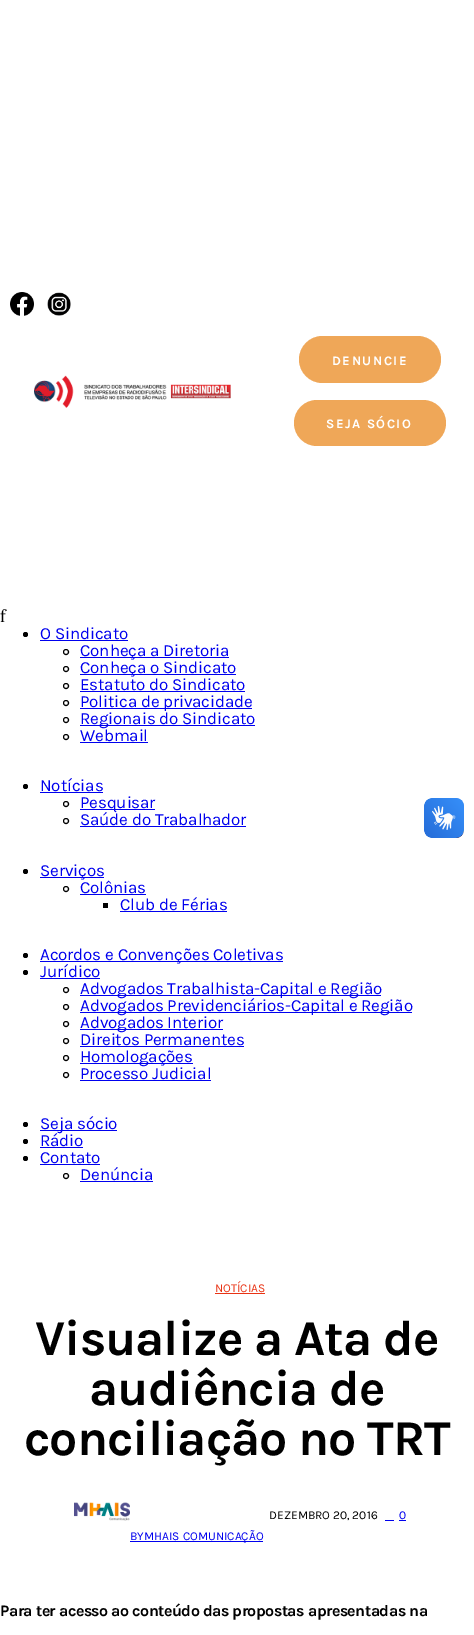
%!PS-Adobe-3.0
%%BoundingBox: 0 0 474 1635
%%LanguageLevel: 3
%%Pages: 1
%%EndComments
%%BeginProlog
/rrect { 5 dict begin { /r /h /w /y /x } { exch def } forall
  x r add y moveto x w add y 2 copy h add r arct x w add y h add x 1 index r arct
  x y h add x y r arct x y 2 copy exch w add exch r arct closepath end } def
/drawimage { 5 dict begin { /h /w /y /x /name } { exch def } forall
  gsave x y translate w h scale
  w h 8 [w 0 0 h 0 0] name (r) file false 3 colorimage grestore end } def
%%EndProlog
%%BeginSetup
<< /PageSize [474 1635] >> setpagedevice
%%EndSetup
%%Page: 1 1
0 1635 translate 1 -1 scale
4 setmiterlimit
1 setgray
0 0 474 1635 rectfill
(images/1.raw) 10 292 24 24 drawimage
(images/2.raw) 47 292 24 24 drawimage
(images/3.raw) 34 375 197 33 drawimage
0.937 0.655 0.345 setrgbcolor
299 336 142 47 23.5 rrect fill
294 400 152 46 23 rrect fill
0 setgray
newpath 25.5 634.5 2.5 0 360 arc closepath fill
0 0 0.933 setrgbcolor
40 640 88 1 rectfill
0 setgray
newpath 66 652 2.5 0 360 arc closepath stroke
0 0 0.933 setrgbcolor
80 657 149 1 rectfill
0 setgray
newpath 66 669 2.5 0 360 arc closepath stroke
0 0 0.933 setrgbcolor
80 674 156 1 rectfill
0 setgray
newpath 66 686 2.5 0 360 arc closepath stroke
0 0 0.933 setrgbcolor
80 691 165 1 rectfill
0 setgray
newpath 66 703 2.5 0 360 arc closepath stroke
0 0 0.933 setrgbcolor
80 708 172 1 rectfill
0 setgray
newpath 66 720 2.5 0 360 arc closepath stroke
0 0 0.933 setrgbcolor
80 725 175 1 rectfill
0 setgray
newpath 66 737 2.5 0 360 arc closepath stroke
0 0 0.933 setrgbcolor
80 742 68 1 rectfill
0 setgray
newpath 25.5 786.5 2.5 0 360 arc closepath fill
0 0 0.933 setrgbcolor
40 792 63 1 rectfill
0 setgray
newpath 66 804 2.5 0 360 arc closepath stroke
0 0 0.933 setrgbcolor
80 809 75 1 rectfill
0 setgray
newpath 66 821 2.5 0 360 arc closepath stroke
0 0 0.933 setrgbcolor
80 826 166 1 rectfill
0 setgray
newpath 25.5 871.5 2.5 0 360 arc closepath fill
0 0 0.933 setrgbcolor
40 877 64 1 rectfill
0 setgray
newpath 66 889 2.5 0 360 arc closepath stroke
0 0 0.933 setrgbcolor
80 894 66 1 rectfill
0 setgray
103 903 5 5 rectfill
0 0 0.933 setrgbcolor
120 911 107 1 rectfill
0 setgray
newpath 25.5 955.5 2.5 0 360 arc closepath fill
0 0 0.933 setrgbcolor
40 961 243 1 rectfill
0 setgray
newpath 25.5 972.5 2.5 0 360 arc closepath fill
0 0 0.933 setrgbcolor
40 978 60 1 rectfill
0 setgray
newpath 66 990 2.5 0 360 arc closepath stroke
0 0 0.933 setrgbcolor
80 995 301 1 rectfill
0 setgray
newpath 66 1007 2.5 0 360 arc closepath stroke
0 0 0.933 setrgbcolor
80 1012 332 1 rectfill
0 setgray
newpath 66 1024 2.5 0 360 arc closepath stroke
0 0 0.933 setrgbcolor
80 1029 143 1 rectfill
0 setgray
newpath 66 1041 2.5 0 360 arc closepath stroke
0 0 0.933 setrgbcolor
80 1046 164 1 rectfill
0 setgray
newpath 66 1058 2.5 0 360 arc closepath stroke
0 0 0.933 setrgbcolor
80 1063 113 1 rectfill
0 setgray
newpath 66 1075 2.5 0 360 arc closepath stroke
0 0 0.933 setrgbcolor
80 1080 131 1 rectfill
0 setgray
newpath 25.5 1124.5 2.5 0 360 arc closepath fill
0 0 0.933 setrgbcolor
40 1130 77 1 rectfill
0 setgray
newpath 25.5 1141.5 2.5 0 360 arc closepath fill
0 0 0.933 setrgbcolor
40 1147 43 1 rectfill
0 setgray
newpath 25.5 1158.5 2.5 0 360 arc closepath fill
0 0 0.933 setrgbcolor
40 1164 60 1 rectfill
0 setgray
newpath 66 1176 2.5 0 360 arc closepath stroke
0 0 0.933 setrgbcolor
80 1181 73 1 rectfill
0.914 0.2 0.078 setrgbcolor
215 1293 50 1 rectfill
0 0 0.933 setrgbcolor
399 1520 7 1 rectfill
385 1520 9 1 rectfill
(images/4.raw) 74 1502 56 19 drawimage
130 1541 133 1 rectfill
(images/5.raw) 424 798 40 40 drawimage
(images/6.raw) 424 798 40 40 drawimage
/Karla-Bold [13 0 0 -13 0 0] selectfont
1 setgray
332 365 moveto 1.5 0 (DENUNCIE) ashow
326 428 moveto 1.5 0 (SEJA SÓCIO) ashow
/Lora-Regular [17 0 0 -17 0 0] selectfont
0 setgray
0 622 moveto -0.15 0 (f) ashow
/Karla-Regular [17 0 0 -17 0 0] selectfont
0 0 0.933 setrgbcolor
40 639 moveto -0.15 0 (O Sindicato) ashow
80 656 moveto -0.15 0 (Conheça a Diretoria) ashow
80 673 moveto -0.15 0 (Conheça o Sindicato) ashow
80 690 moveto -0.15 0 (Estatuto do Sindicato) ashow
80 707 moveto -0.15 0 (Politica de privacidade) ashow
80 724 moveto -0.15 0 (Regionais do Sindicato) ashow
80 741 moveto -0.15 0 (Webmail) ashow
40 791 moveto -0.15 0 (Notícias) ashow
80 808 moveto -0.15 0 (Pesquisar) ashow
80 825 moveto -0.15 0 (Saúde do Trabalhador) ashow
40 876 moveto -0.15 0 (Serviços) ashow
80 893 moveto -0.15 0 (Colônias) ashow
120 910 moveto -0.15 0 (Club de Férias) ashow
40 960 moveto -0.15 0 (Acordos e Convenções Coletivas) ashow
40 977 moveto -0.15 0 (Jurídico) ashow
80 994 moveto -0.15 0 (Advogados Trabalhista-Capital e Região) ashow
80 1011 moveto -0.15 0 (Advogados Previdenciários-Capital e Região) ashow
80 1028 moveto -0.15 0 (Advogados Interior) ashow
80 1045 moveto -0.15 0 (Direitos Permanentes) ashow
80 1062 moveto -0.15 0 (Homologações) ashow
80 1079 moveto -0.15 0 (Processo Judicial) ashow
40 1129 moveto -0.15 0 (Seja sócio) ashow
40 1146 moveto -0.15 0 (Rádio) ashow
40 1163 moveto -0.15 0 (Contato) ashow
80 1180 moveto -0.15 0 (Denúncia) ashow
/Karla-Regular [12 0 0 -12 0 0] selectfont
0.914 0.2 0.078 setrgbcolor
215 1292 moveto (NOTÍCIAS) show
/Karla-Bold [50 0 0 -50 0 0] selectfont
0 setgray
35 1355 moveto -1 0 (Visualize a Ata de) ashow
89 1405 moveto -1 0 (audiência de) ashow
24 1455 moveto -1 0 (conciliação no TRT) ashow
/Karla-Regular [12 0 0 -12 0 0] selectfont
269 1519 moveto (DEZEMBRO 20, 2016) show
0 0 0.933 setrgbcolor
399 1519 moveto (0) show
130 1540 moveto (BYMHAIS COMUNICAÇÃO) show
/Karla-Bold [16 0 0 -16 0 0] selectfont
0 setgray
0 1616 moveto -0.52 0 (Para ter acesso ao conteúdo das propostas apresentadas na) ashow
showpage
%%EOF
